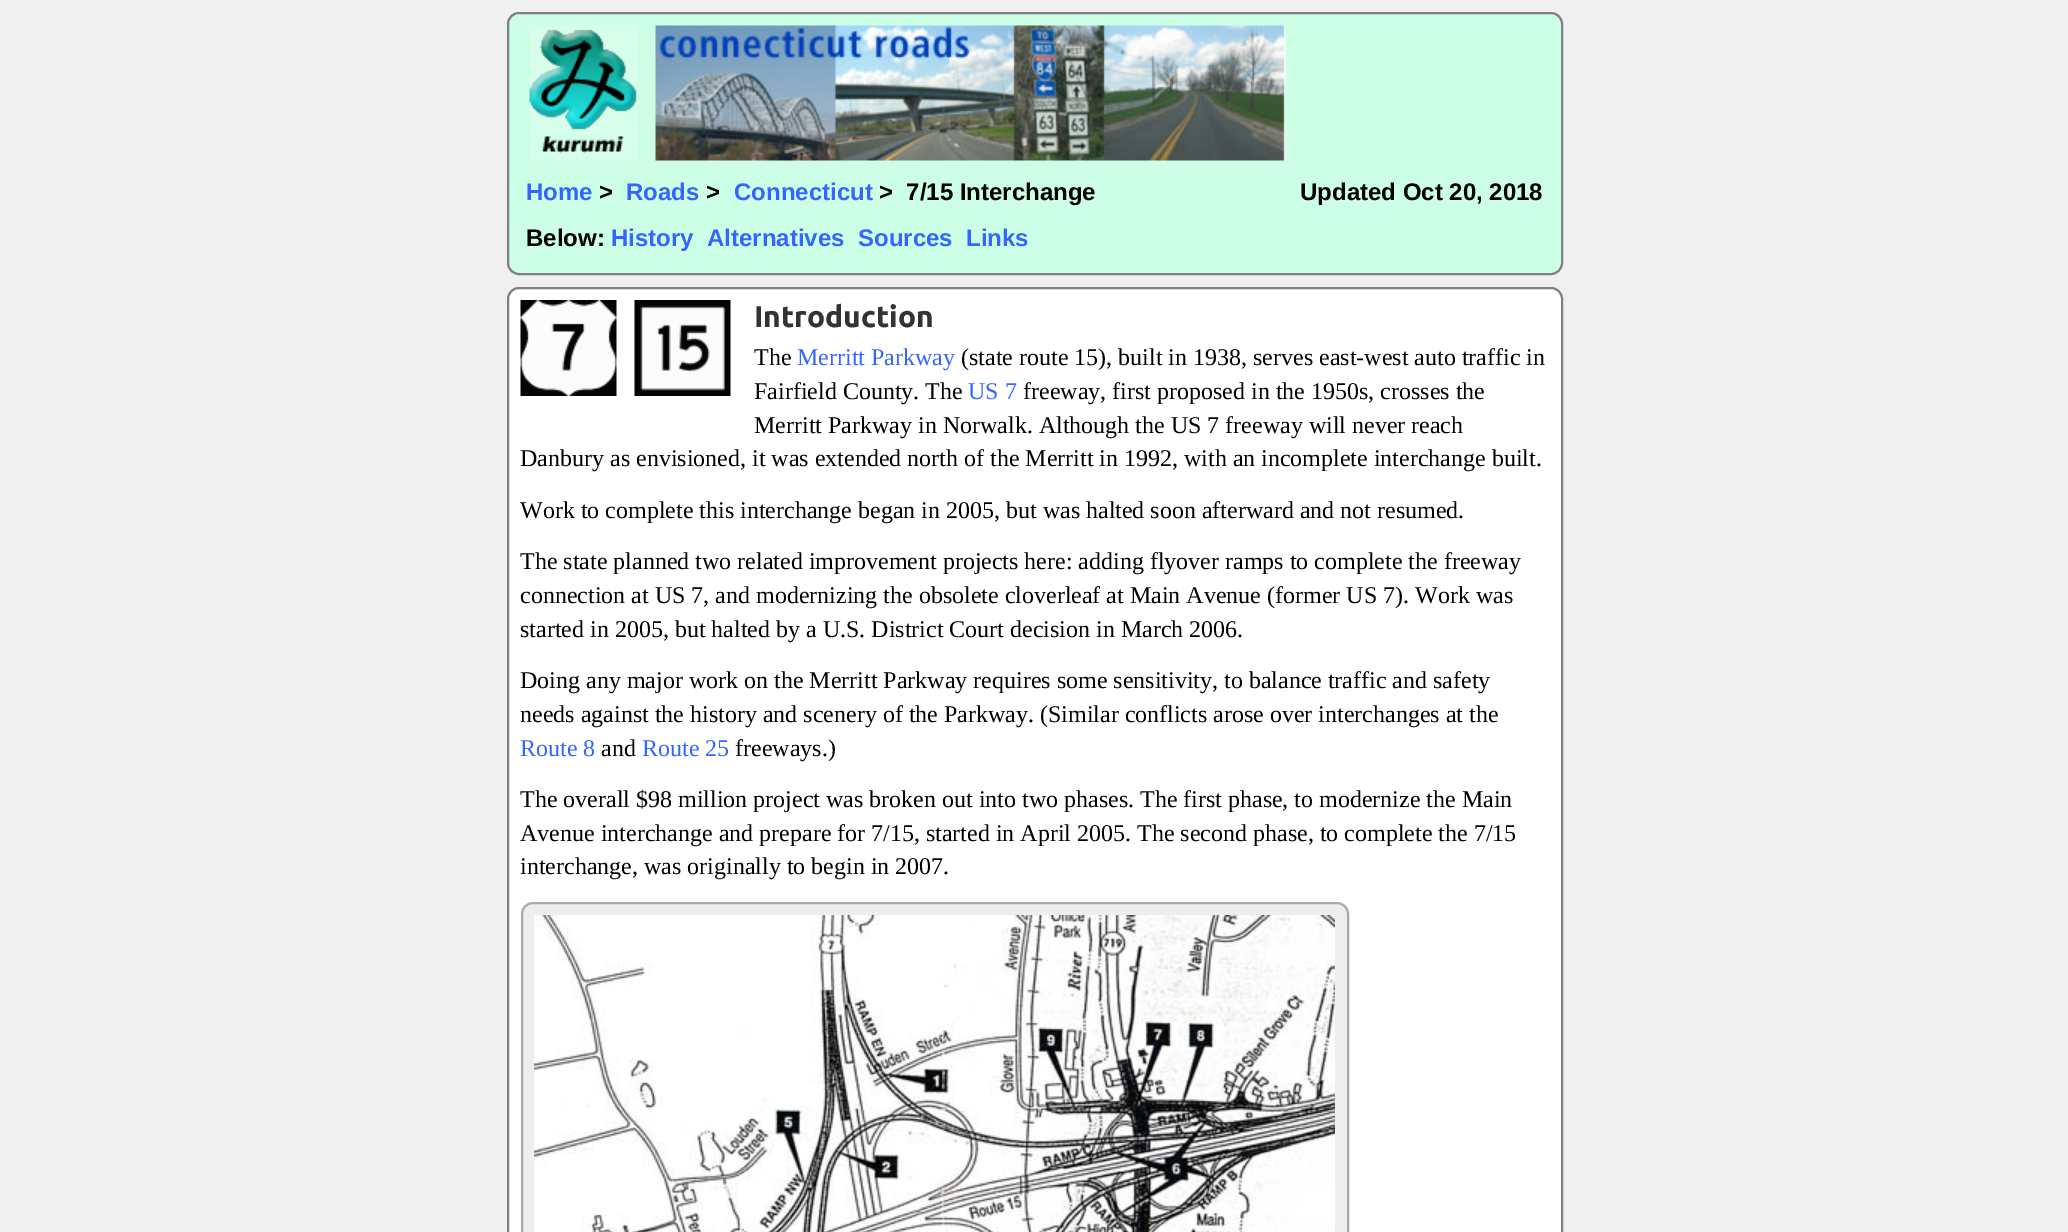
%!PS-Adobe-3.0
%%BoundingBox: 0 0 2068 1232
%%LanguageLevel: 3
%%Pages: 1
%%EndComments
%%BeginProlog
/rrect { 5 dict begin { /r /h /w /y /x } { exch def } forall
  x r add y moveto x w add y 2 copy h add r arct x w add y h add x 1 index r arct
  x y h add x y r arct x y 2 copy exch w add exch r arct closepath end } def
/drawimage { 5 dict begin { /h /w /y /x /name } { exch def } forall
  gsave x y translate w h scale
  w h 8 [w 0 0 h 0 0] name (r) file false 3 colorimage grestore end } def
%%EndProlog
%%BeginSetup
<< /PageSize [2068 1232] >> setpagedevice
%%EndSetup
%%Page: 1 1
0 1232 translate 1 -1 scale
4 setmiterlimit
0.941 setgray
0 0 2068 1232 rectfill
0.804 1 0.902 setrgbcolor
508 13 1054 261 11 rrect gsave fill grestore
0.502 setgray
2 setlinewidth
stroke
(images/1.raw) 529 25 109 136 drawimage
(images/2.raw) 655 25 631 136 drawimage
1 setgray
508 288 1054 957 11 rrect gsave fill grestore
0.502 setgray
stroke
(images/3.raw) 520 300 97 96 drawimage
(images/4.raw) 634 300 97 96 drawimage
0.933 setgray
522 903 826 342 11 rrect gsave fill grestore
0.667 setgray
stroke
(images/5.raw) 534 915 801 317 drawimage
/LiberationSans-Bold [24 0 0 -24 0 0] selectfont
0.2 0.4 1 setrgbcolor
526 200 moveto (Home) show
0 setgray
599 200 moveto (>) show
0.2 0.4 1 setrgbcolor
626 200 moveto (Roads) show
0 setgray
706 200 moveto (>) show
0.2 0.4 1 setrgbcolor
734 200 moveto (Connecticut) show
0 setgray
879 200 moveto (>  7/15 Interchange) show
1300 200 moveto (Updated Oct 20, 2018) show
526 246 moveto (Below:) show
0.2 0.4 1 setrgbcolor
611 246 moveto (History) show
707 246 moveto (Alternatives) show
858 246 moveto (Sources) show
966 246 moveto (Links) show
/Ubuntu-Bold [30 0 0 -30 0 0] selectfont
0.2 setgray
754 327 moveto (Introduction) show
/LiberationSerif-Regular [24 0 0 -24 0 0] selectfont
0 setgray
754 365 moveto (The) show
0.2 0.4 1 setrgbcolor
797 365 moveto (Merritt Parkway) show
0 setgray
961 365 moveto (\(state route 15\), built in 1938, serves east-west auto traffic in) show
754 399 moveto (Fairfield County. The) show
0.2 0.4 1 setrgbcolor
968 399 moveto (US 7) show
0 setgray
1023 399 moveto (freeway, first proposed in the 1950s, crosses the) show
754 433 moveto (Merritt Parkway in Norwalk. Although the US 7 freeway will never reach) show
520 466 moveto (Danbury as envisioned, it was extended north of the Merritt in 1992, with an incomplete interchange built.) show
520 518 moveto (Work to complete this interchange began in 2005, but was halted soon afterward and not resumed.) show
520 569 moveto (The state planned two related improvement projects here: adding flyover ramps to complete the freeway) show
520 603 moveto (connection at US 7, and modernizing the obsolete cloverleaf at Main Avenue \(former US 7\). Work was) show
520 637 moveto (started in 2005, but halted by a U.S. District Court decision in March 2006.) show
520 688 moveto (Doing any major work on the Merritt Parkway requires some sensitivity, to balance traffic and safety) show
520 722 moveto (needs against the history and scenery of the Parkway. \(Similar conflicts arose over interchanges at the) show
0.2 0.4 1 setrgbcolor
520 756 moveto (Route 8) show
0 setgray
601 756 moveto (and) show
0.2 0.4 1 setrgbcolor
642 756 moveto (Route 25) show
0 setgray
735 756 moveto (freeways.\)) show
520 807 moveto (The overall $98 million project was broken out into two phases. The first phase, to modernize the Main) show
520 841 moveto (Avenue interchange and prepare for 7/15, started in April 2005. The second phase, to complete the 7/15) show
520 874 moveto (interchange, was originally to begin in 2007.) show
showpage
%%EOF
